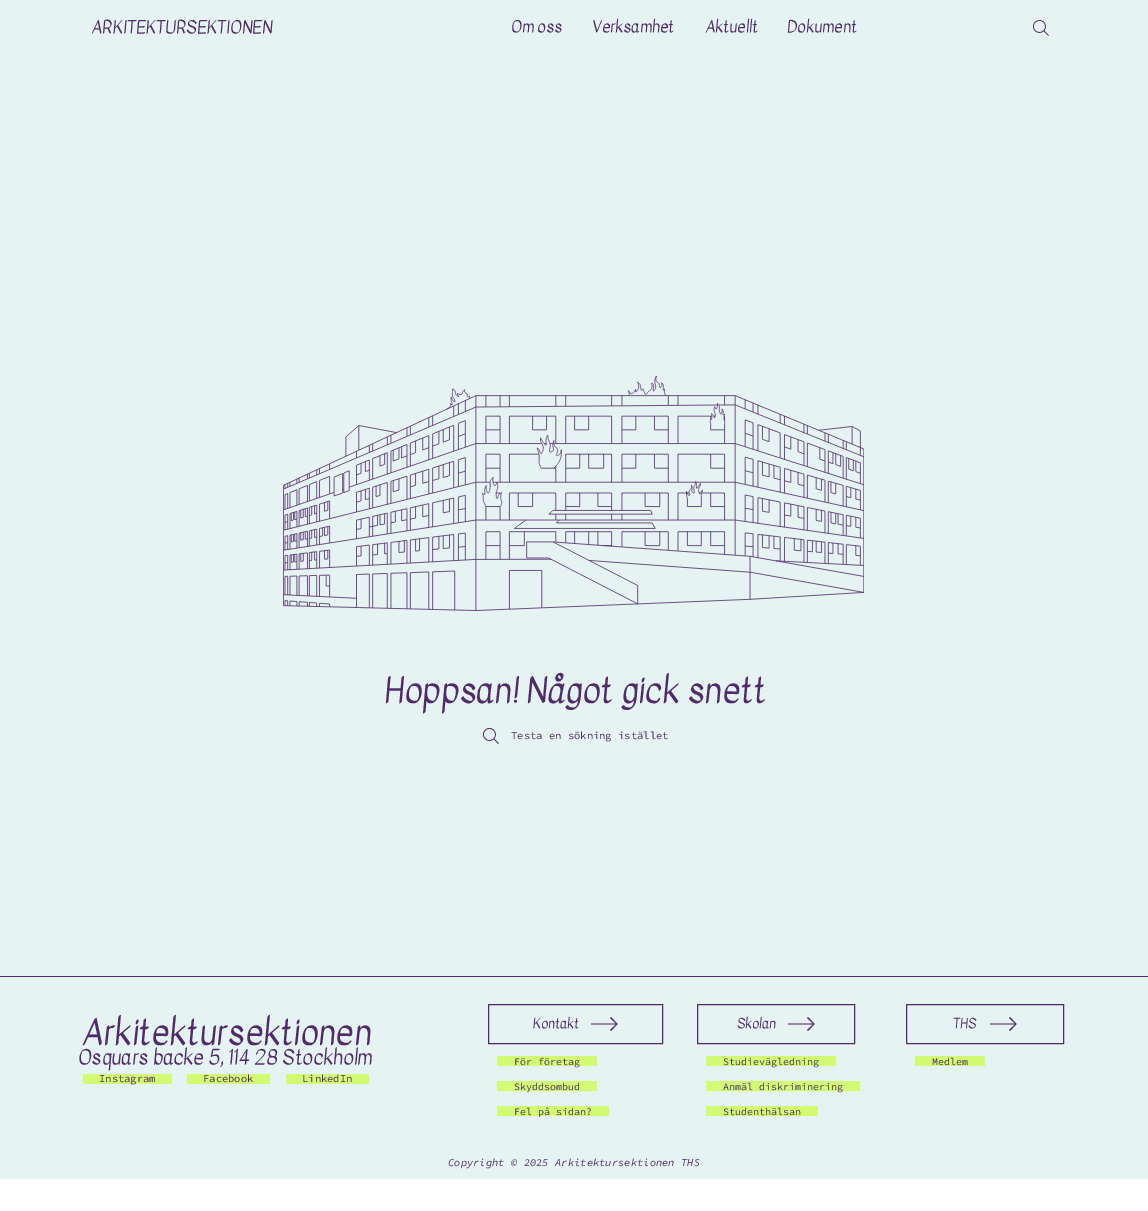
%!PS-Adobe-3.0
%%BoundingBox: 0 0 1148 1211
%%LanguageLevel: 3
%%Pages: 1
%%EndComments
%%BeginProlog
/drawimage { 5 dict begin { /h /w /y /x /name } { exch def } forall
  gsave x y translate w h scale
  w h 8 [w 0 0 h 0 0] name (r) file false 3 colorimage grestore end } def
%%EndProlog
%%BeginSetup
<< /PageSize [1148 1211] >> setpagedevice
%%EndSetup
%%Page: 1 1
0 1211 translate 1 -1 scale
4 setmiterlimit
1 setgray
0 0 1148 1211 rectfill
0.898 0.953 0.949 setrgbcolor
0 0 1148 1179 rectfill
(images/1.raw) 1033 20 16 16 drawimage
(images/2.raw) 283 375 581 236 drawimage
(images/1.raw) 483 728 16 16 drawimage
0.314 0.169 0.412 setrgbcolor
0 976 1148 1 rectfill
0.824 0.98 0.451 setrgbcolor
83 1074 89 10 rectfill
187 1074 83 10 rectfill
286 1074 83 10 rectfill
0.314 0.169 0.412 setrgbcolor
488.5 1004.5 174 39 rectstroke
newpath 611 1017 moveto 610 1018 lineto 616 1023.5 lineto 591 1023.5 lineto 591 1024.5 lineto 616 1024.5 lineto 610 1030 lineto 611 1031 lineto 617.5 1024 lineto closepath fill
697.5 1004.5 157 39 rectstroke
newpath 808 1017 moveto 807 1018 lineto 813 1023.5 lineto 788 1023.5 lineto 788 1024.5 lineto 813 1024.5 lineto 807 1030 lineto 808 1031 lineto 814.5 1024 lineto closepath fill
906.5 1004.5 157 39 rectstroke
newpath 1010 1017 moveto 1009 1018 lineto 1015 1023.5 lineto 990 1023.5 lineto 990 1024.5 lineto 1015 1024.5 lineto 1009 1030 lineto 1010 1031 lineto 1016.5 1024 lineto closepath fill
0.824 0.98 0.451 setrgbcolor
497 1056 100 10 rectfill
706 1056 130 10 rectfill
915 1056 70 10 rectfill
497 1081 100 10 rectfill
706 1081 154 10 rectfill
497 1106 112 10 rectfill
706 1106 112 10 rectfill
/Kavivanar-Regular [17.25 0 0 -17.25 0 0] selectfont
0.314 0.169 0.412 setrgbcolor
91 33 moveto (ARKITEKTURSEKTIONEN) show
/Kavivanar-Regular [16 0 0 -16 0 0] selectfont
511 32 moveto (Om oss) show
592 32 moveto (Verksamhet) show
705 32 moveto (Aktuellt) show
787 32 moveto (Dokument) show
/Kavivanar-Regular [34.5 0 0 -34.5 0 0] selectfont
384 702 moveto (Hoppsan! Något gick snett) show
/SourceCodePro-Regular [10.5 0 0 -10.5 0 0] selectfont
511 739 moveto (Testa en sökning istället) show
/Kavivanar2-Regular [34.5 0 0 -34.5 0 0] selectfont
81 1044 moveto (Arkitektursektionen) show
/Kavivanar-Regular [20 0 0 -20 0 0] selectfont
78 1064 moveto (Osquars backe 5, 114 28 Stockholm) show
/SourceCodePro-Regular [10.5 0 0 -10.5 0 0] selectfont
99 1082 moveto (Instagram) show
203 1082 moveto (Facebook) show
302 1082 moveto (LinkedIn) show
/Kavivanar-Regular [13.5 0 0 -13.5 0 0] selectfont
533 1028 moveto (Kontakt) show
737 1028 moveto (Skolan) show
953 1028 moveto (THS) show
/SourceCodePro-Regular [10 0 0 -10 0 0] selectfont
514 1065 moveto (För företag) show
723 1065 moveto (Studievägledning) show
932 1065 moveto (Medlem) show
514 1090 moveto (Skyddsombud) show
723 1090 moveto (Anmäl diskriminering) show
514 1115 moveto (Fel på sidan?) show
723 1115 moveto (Studenthälsan) show
/SourceCodePro-Italic [10.5 0 0 -10.5 0 0] selectfont
448 1166 moveto (Copyright © 2025 Arkitektursektionen THS) show
showpage
%%EOF
